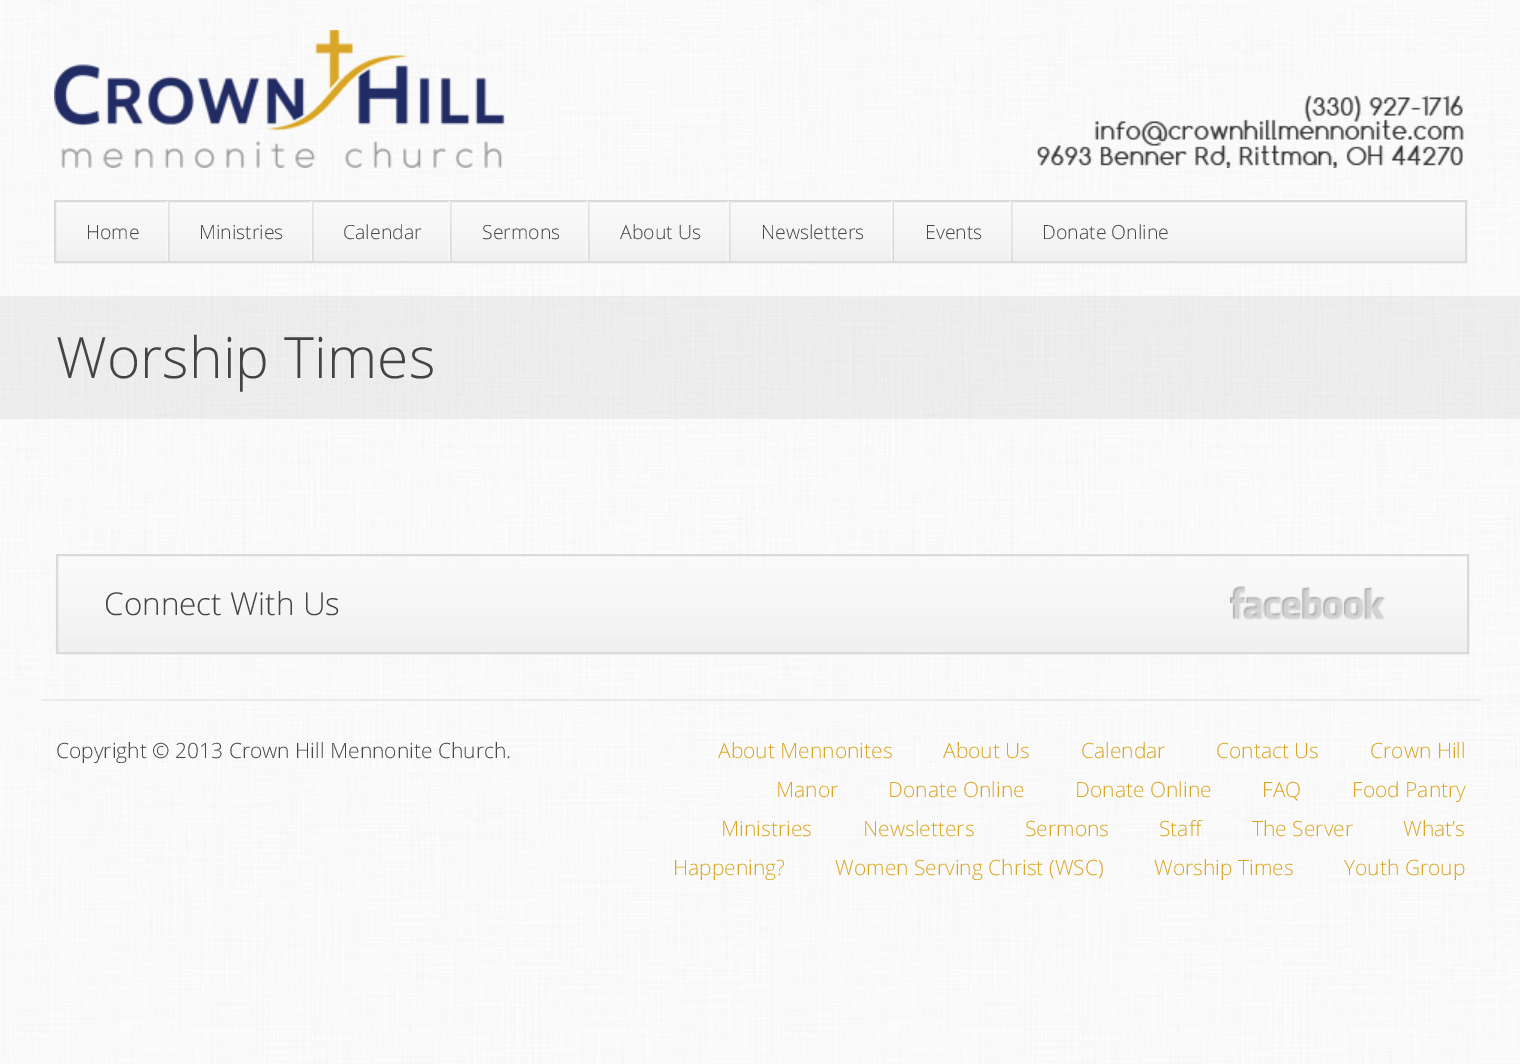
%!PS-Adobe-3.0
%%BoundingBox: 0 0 1520 1064
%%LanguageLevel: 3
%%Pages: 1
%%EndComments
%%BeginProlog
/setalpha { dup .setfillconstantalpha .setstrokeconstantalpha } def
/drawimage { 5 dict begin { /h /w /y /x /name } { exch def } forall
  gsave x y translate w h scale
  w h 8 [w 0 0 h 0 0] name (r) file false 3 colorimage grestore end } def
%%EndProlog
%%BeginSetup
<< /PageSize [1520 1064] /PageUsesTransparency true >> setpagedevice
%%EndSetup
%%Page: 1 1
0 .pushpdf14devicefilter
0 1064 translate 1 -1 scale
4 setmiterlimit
1 setgray
0 0 1520 1064 rectfill
(images/1.raw) 0 0 1520 1064 drawimage
(images/2.raw) 54 30 1410 138 drawimage
(images/3.raw) 56 202 1409 59 drawimage
0.855 setgray
2 setlinewidth
55 201 1411 61 rectstroke
(images/4.raw) 166 201 4 60 drawimage
(images/4.raw) 310 201 4 60 drawimage
(images/4.raw) 448 201 4 60 drawimage
(images/4.raw) 586 201 4 60 drawimage
(images/4.raw) 727 201 4 60 drawimage
(images/5.raw) 891 201 3 60 drawimage
(images/4.raw) 1009 201 4 60 drawimage
0.05 setalpha
0 setgray
0 296 1520 123 rectfill
1 setalpha
(images/6.raw) 55 564 1412 89 drawimage
0.855 setgray
57 555 1411 98 rectstroke
(images/7.raw) 1230 586 155 34 drawimage
0.925 0.922 0.922 setrgbcolor
41 699 1440 2 rectfill
/OpenSans-Light [19.5 0 0 -19.5 0 0] selectfont
0.267 setgray
86 239 moveto (Home) show
199 239 moveto (Ministries) show
343 239 moveto (Calendar) show
482 239 moveto (Sermons) show
620 239 moveto (About Us) show
761 239 moveto (Newsletters) show
925 239 moveto (Events) show
1042 239 moveto (Donate Online) show
/OpenSans-Light [57 0 0 -57 0 0] selectfont
56 378 moveto (Worship Times) show
/OpenSans-Light [31.5 0 0 -31.5 0 0] selectfont
104 615 moveto (Connect With Us) show
/OpenSans-Light [21 0 0 -21 0 0] selectfont
56 758 moveto (Copyright © 2013 Crown Hill Mennonite Church.) show
0.855 0.647 0.125 setrgbcolor
718 758 moveto (About Mennonites) show
943 758 moveto (About Us) show
1081 758 moveto (Calendar) show
1216 758 moveto (Contact Us) show
1370 758 moveto (Crown Hill) show
776 797 moveto (Manor) show
888 797 moveto (Donate Online) show
1075 797 moveto (Donate Online) show
1262 797 moveto (FAQ) show
1352 797 moveto (Food Pantry) show
721 836 moveto (Ministries) show
863 836 moveto (Newsletters) show
1025 836 moveto (Sermons) show
1159 836 moveto (Staff) show
1252 836 moveto (The Server) show
1403 836 moveto (What’s) show
673 875 moveto (Happening?) show
835 875 moveto (Women Serving Christ \(WSC\)) show
1154 875 moveto (Worship Times) show
1344 875 moveto (Youth Group) show
.poppdf14devicefilter showpage
%%EOF
